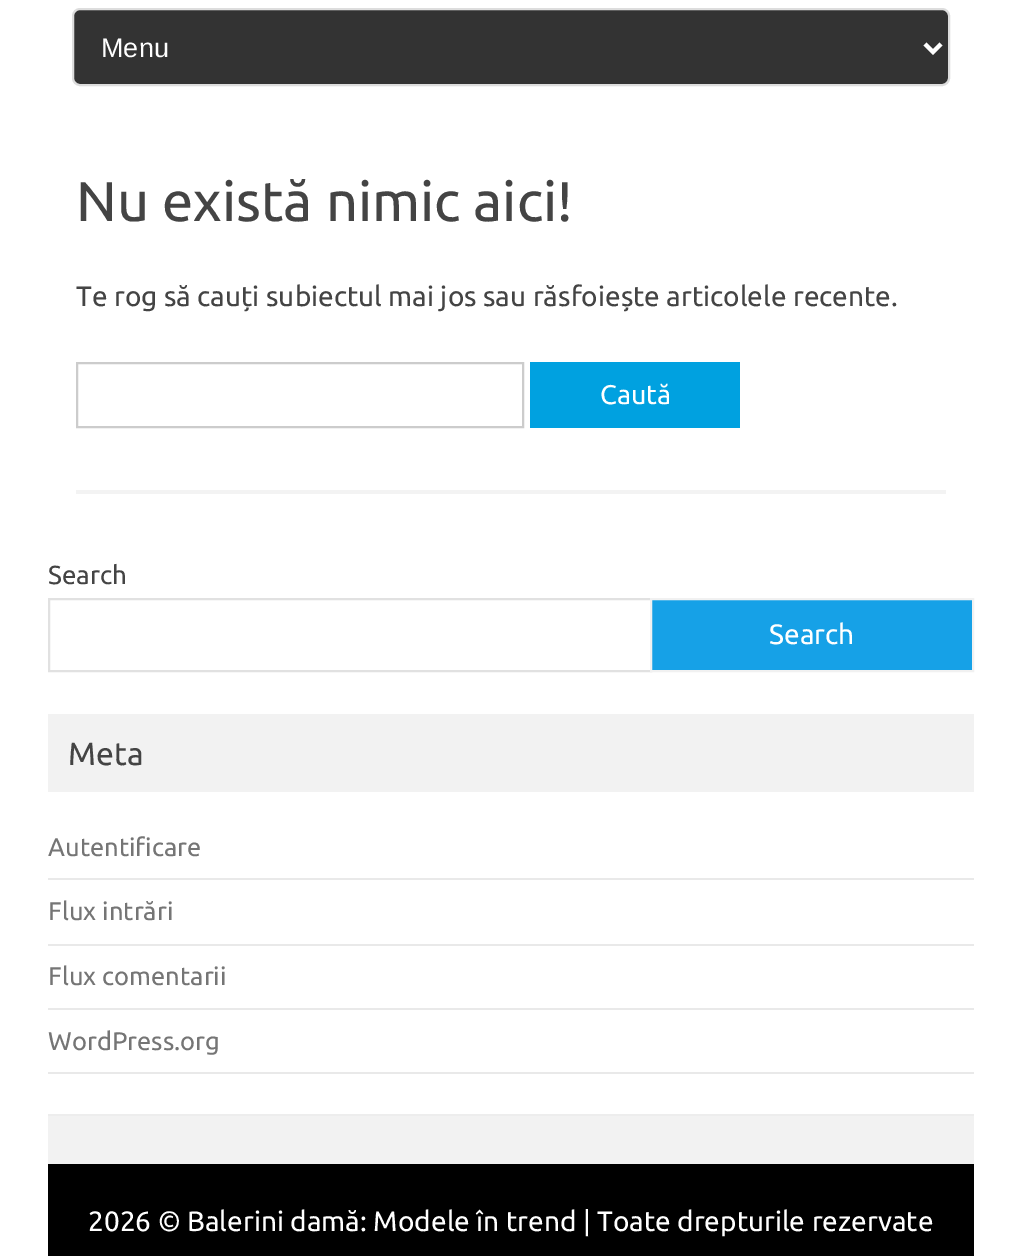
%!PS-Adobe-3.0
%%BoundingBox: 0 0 1021 1256
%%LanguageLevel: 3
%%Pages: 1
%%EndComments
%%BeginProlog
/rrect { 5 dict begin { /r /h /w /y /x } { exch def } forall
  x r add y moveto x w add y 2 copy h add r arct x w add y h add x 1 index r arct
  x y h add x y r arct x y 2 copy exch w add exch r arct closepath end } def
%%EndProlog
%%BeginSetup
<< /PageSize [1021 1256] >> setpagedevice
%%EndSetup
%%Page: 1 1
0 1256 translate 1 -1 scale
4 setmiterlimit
1 setgray
0 0 1021 1256 rectfill
0.2 setgray
73 9 876 76 7 rrect gsave fill grestore
0.867 setgray
2 setlinewidth
stroke
1 setgray
4 setlinewidth
newpath 925 44 moveto 933 52 lineto 941 44 lineto stroke
0.953 setgray
76 490 870 4 rectfill
0.8 setgray
2 setlinewidth
77 363 446 64 rectstroke
0 0.631 0.878 setrgbcolor
530 362 210 66 rectfill
0.882 setgray
49 599 602 72 rectstroke
0.086 0.631 0.906 setrgbcolor
newpath 651 599 moveto 973 599 lineto 973 671 lineto 651 671 lineto closepath gsave fill grestore
0.945 setgray
stroke
0.949 setgray
48 714 926 78 rectfill
0.914 setgray
48 878 926 2 rectfill
48 944 926 2 rectfill
48 1008 926 2 rectfill
48 1072 926 2 rectfill
0.949 setgray
48 1116 926 48 rectfill
0.929 setgray
48 1114 926 2 rectfill
0 setgray
48 1164 926 92 rectfill
/LiberationSans-Regular [27 0 0 -27 0 0] selectfont
1 setgray
101 57 moveto (Menu) show
/Ubuntu-Regular [56 0 0 -56 0 0] selectfont
0.267 setgray
76 221 moveto (Nu există nimic aici!) show
/Ubuntu-Regular [28 0 0 -28 0 0] selectfont
76 306 moveto (Te rog să cauți subiectul mai jos sau răsfoiește articolele recente.) show
/Ubuntu-Regular [27 0 0 -27 0 0] selectfont
1 setgray
600 404 moveto (Caută) show
/Ubuntu-Regular [26 0 0 -26 0 0] selectfont
0.267 setgray
48 584 moveto (Search) show
/Ubuntu-Regular [28 0 0 -28 0 0] selectfont
1 setgray
769 644 moveto (Search) show
/Ubuntu-Regular [32 0 0 -32 0 0] selectfont
0.267 setgray
68 765 moveto (Meta) show
/Ubuntu-Regular [25.5 0 0 -25.5 0 0] selectfont
0.459 setgray
48 856 moveto (Autentificare) show
48 920 moveto (Flux intrări) show
48 985 moveto (Flux comentarii) show
48 1050 moveto (WordPress.org) show
/Ubuntu-Regular [28 0 0 -28 0 0] selectfont
1 setgray
88 1231 moveto (2026 © Balerini damă: Modele în trend | Toate drepturile rezervate) show
showpage
%%EOF
